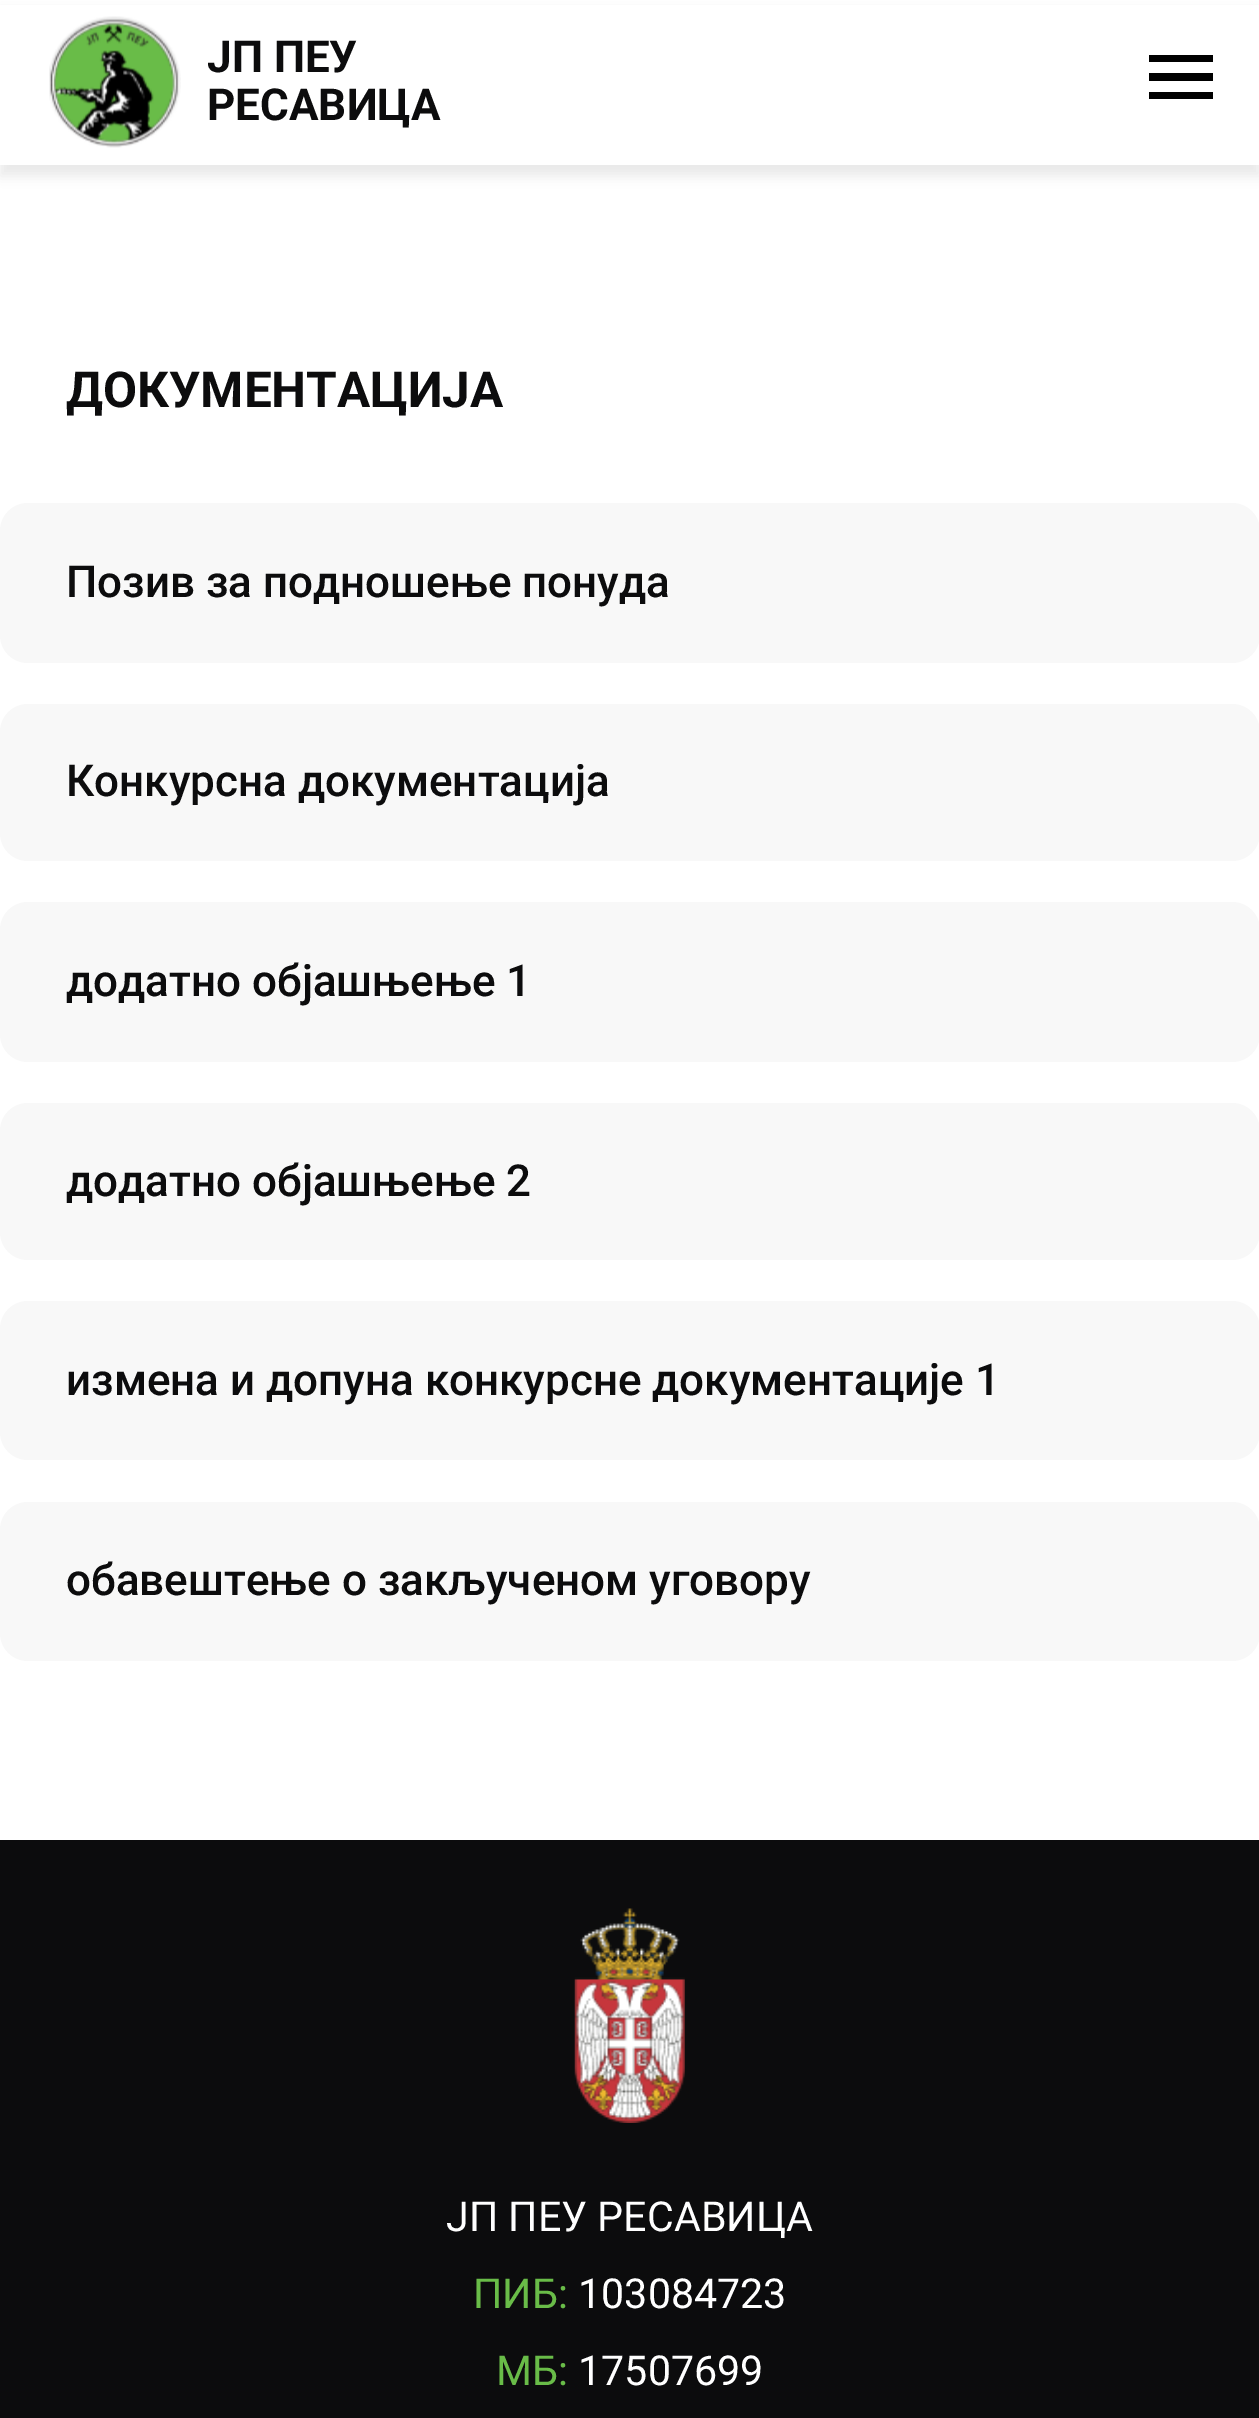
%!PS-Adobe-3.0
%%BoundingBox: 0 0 1259 2418
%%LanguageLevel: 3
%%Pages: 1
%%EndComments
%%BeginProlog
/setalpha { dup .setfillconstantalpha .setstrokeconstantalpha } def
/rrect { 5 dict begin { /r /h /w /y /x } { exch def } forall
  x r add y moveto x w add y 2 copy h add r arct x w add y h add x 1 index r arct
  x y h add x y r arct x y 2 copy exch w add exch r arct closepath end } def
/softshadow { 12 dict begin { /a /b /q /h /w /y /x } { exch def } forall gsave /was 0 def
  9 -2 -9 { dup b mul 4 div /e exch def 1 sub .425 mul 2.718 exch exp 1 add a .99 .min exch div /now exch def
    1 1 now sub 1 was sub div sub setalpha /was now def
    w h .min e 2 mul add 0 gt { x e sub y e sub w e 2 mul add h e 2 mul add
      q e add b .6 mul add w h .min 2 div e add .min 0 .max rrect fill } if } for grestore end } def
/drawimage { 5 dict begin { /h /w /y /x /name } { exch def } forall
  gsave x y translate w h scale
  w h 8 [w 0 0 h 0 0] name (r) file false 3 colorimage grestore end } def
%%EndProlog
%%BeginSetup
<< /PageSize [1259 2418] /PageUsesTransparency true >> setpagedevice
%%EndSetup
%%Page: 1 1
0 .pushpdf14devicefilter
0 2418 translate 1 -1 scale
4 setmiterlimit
1 setgray
0 0 1259 2418 rectfill
0 setgray
0 11 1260 165 0 5.5 0.08 softshadow
1 setgray
0 5 1259 160 rectfill
(images/1.raw) 49 16 132 132 drawimage
0 setgray
newpath 1149 99 moveto 1213 99 lineto 1213 92 lineto 1149 92 lineto closepath 1149 81 moveto 1213 81 lineto 1213 73 lineto 1149 73 lineto closepath 1149 55 moveto 1149 62 lineto 1213 62 lineto 1213 55 lineto closepath fill
0.973 setgray
0 503 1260 160 28 rrect fill
0 704 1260 157 28 rrect fill
0 902 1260 160 28 rrect fill
0 1103 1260 157 28 rrect fill
0 1301 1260 159 28 rrect fill
0 1502 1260 159 28 rrect fill
0.047 0.047 0.051 setrgbcolor
0 1840 1259 578 rectfill
(images/2.raw) 574 1908 111 215 drawimage
/Roboto-Bold [44 0 0 -44 0 0] selectfont
207 72 moveto (ЈП ПЕУ) show
207 120 moveto (РЕСАВИЦА) show
/Roboto-Bold [49.5 0 0 -49.5 0 0] selectfont
66 407 moveto (ДОКУМЕНТАЦИЈА) show
/Roboto-Medium [44 0 0 -44 0 0] selectfont
66 597 moveto (Позив за подношење понуда) show
66 796 moveto (Конкурсна документација) show
66 996 moveto (додатно објашњење 1) show
66 1196 moveto (додатно објашњење 2) show
66 1395 moveto (измена и допуна конкурсне документације 1) show
66 1595 moveto (обавештење о закљученом уговору) show
/Roboto-Regular [41.25 0 0 -41.25 0 0] selectfont
1 setgray
446 2231 moveto (ЈП ПЕУ РЕСАВИЦА) show
0.412 0.737 0.282 setrgbcolor
473 2308 moveto (ПИБ:) show
1 setgray
578 2308 moveto (103084723) show
0.412 0.737 0.282 setrgbcolor
496 2385 moveto (МБ:) show
1 setgray
578 2385 moveto (17507699) show
.poppdf14devicefilter showpage
%%EOF
